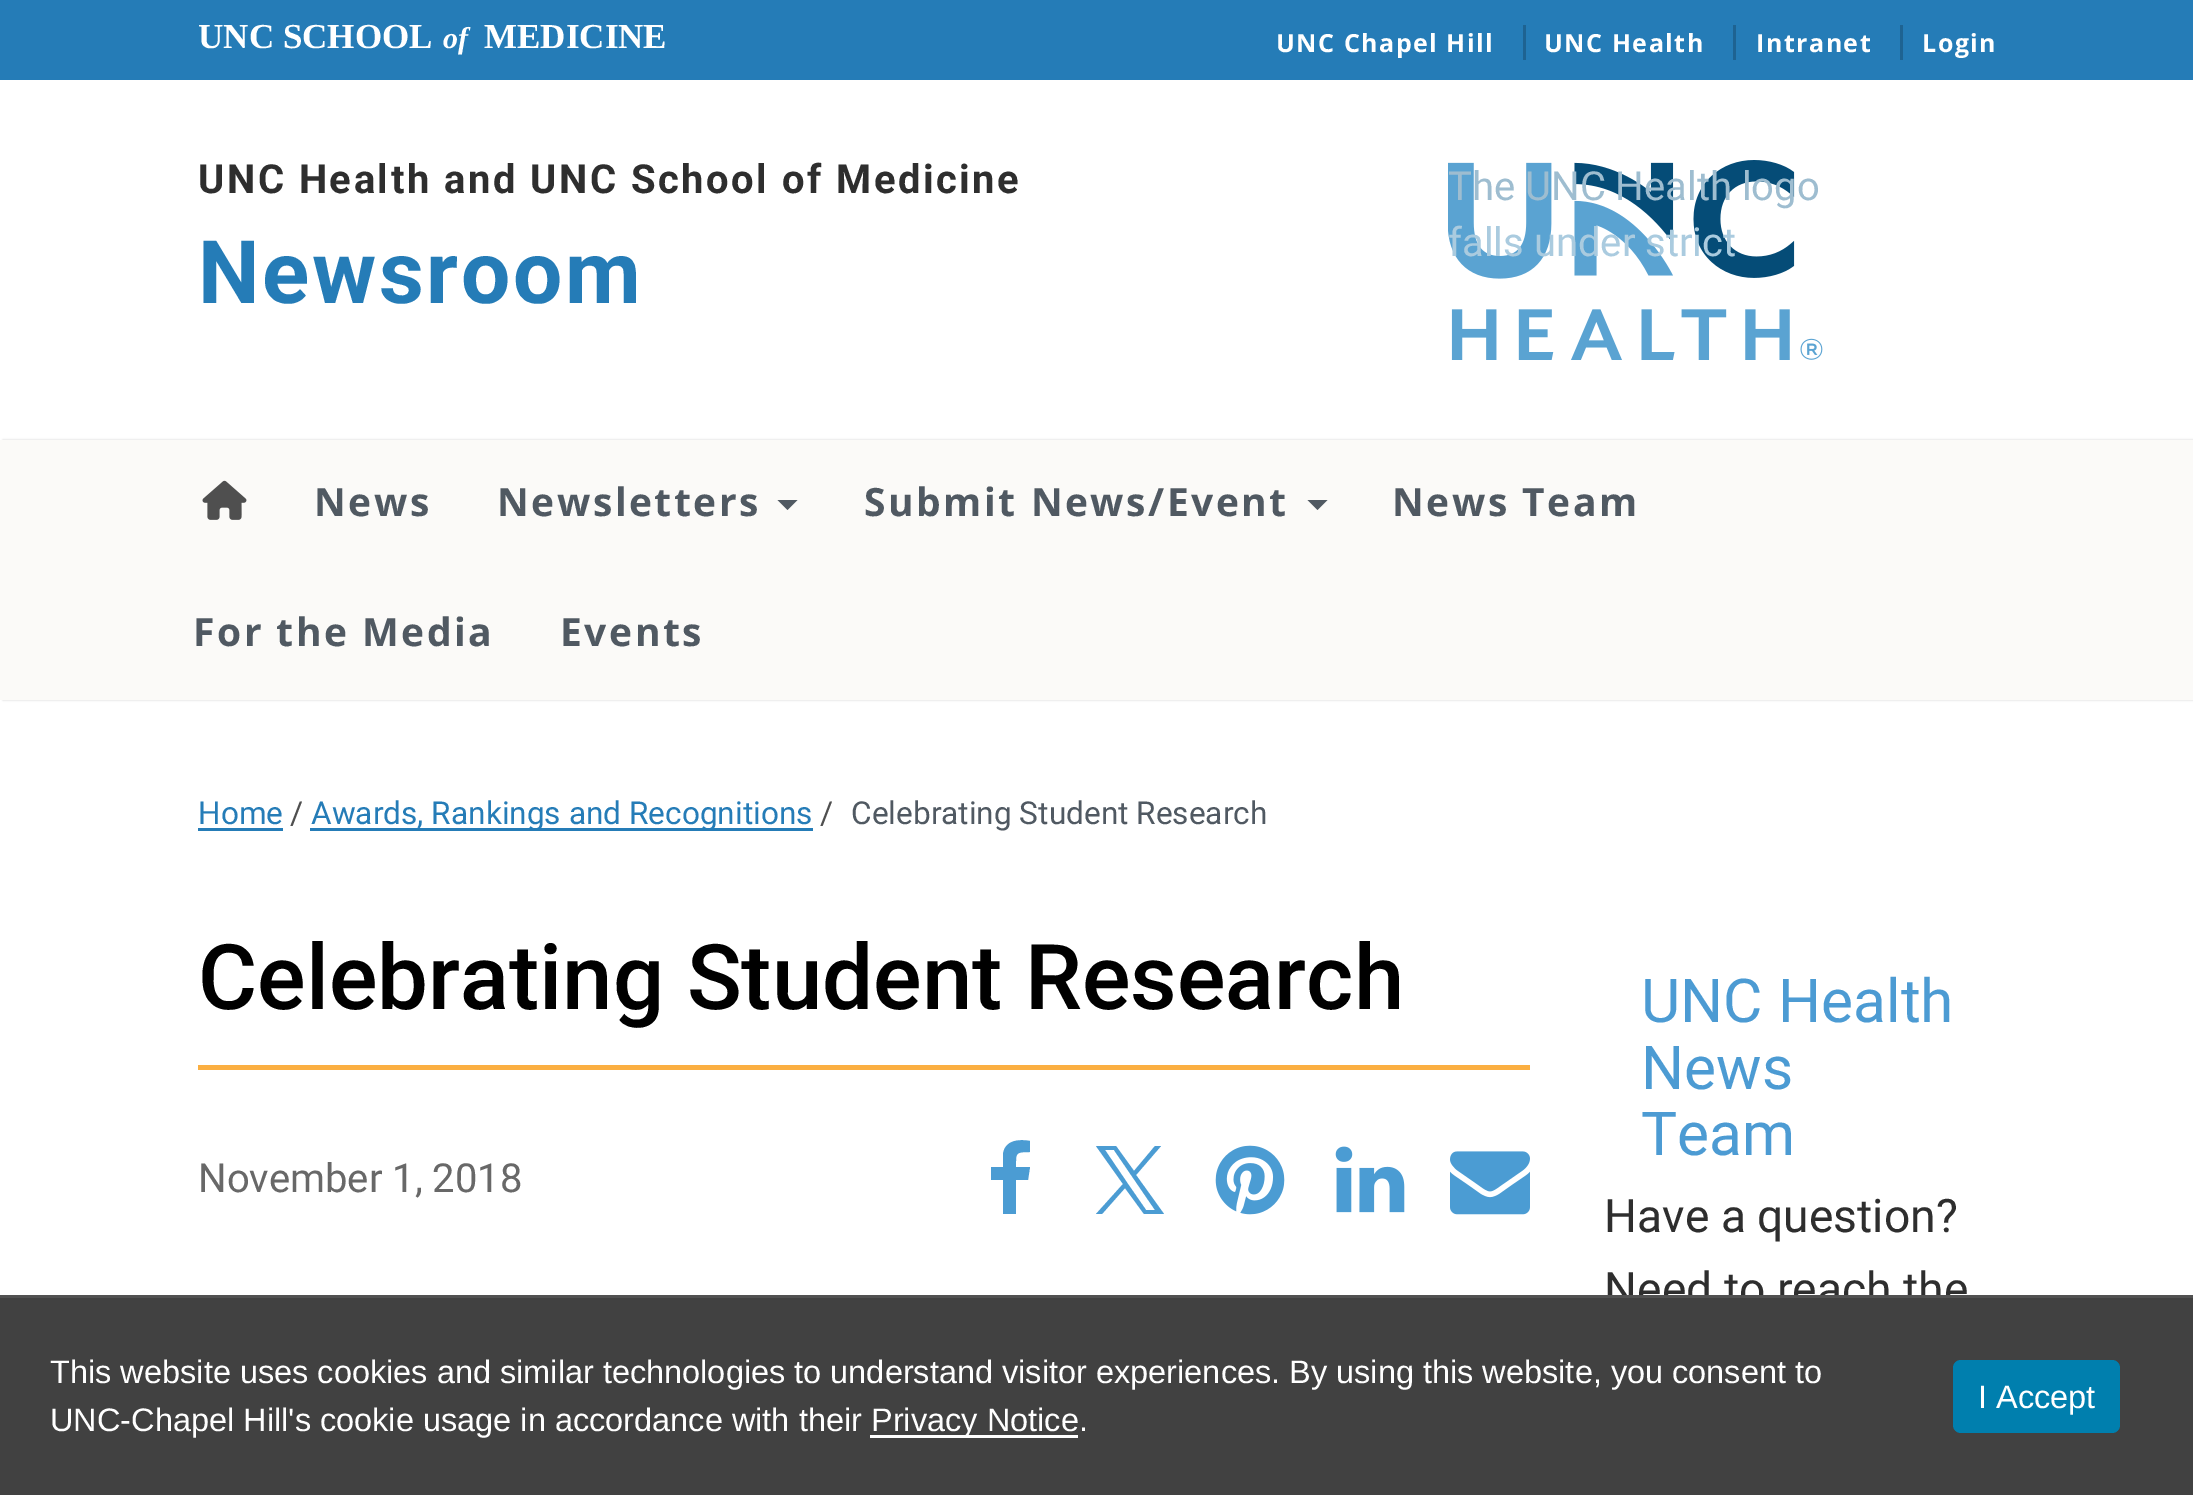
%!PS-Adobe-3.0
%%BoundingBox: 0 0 2193 1495
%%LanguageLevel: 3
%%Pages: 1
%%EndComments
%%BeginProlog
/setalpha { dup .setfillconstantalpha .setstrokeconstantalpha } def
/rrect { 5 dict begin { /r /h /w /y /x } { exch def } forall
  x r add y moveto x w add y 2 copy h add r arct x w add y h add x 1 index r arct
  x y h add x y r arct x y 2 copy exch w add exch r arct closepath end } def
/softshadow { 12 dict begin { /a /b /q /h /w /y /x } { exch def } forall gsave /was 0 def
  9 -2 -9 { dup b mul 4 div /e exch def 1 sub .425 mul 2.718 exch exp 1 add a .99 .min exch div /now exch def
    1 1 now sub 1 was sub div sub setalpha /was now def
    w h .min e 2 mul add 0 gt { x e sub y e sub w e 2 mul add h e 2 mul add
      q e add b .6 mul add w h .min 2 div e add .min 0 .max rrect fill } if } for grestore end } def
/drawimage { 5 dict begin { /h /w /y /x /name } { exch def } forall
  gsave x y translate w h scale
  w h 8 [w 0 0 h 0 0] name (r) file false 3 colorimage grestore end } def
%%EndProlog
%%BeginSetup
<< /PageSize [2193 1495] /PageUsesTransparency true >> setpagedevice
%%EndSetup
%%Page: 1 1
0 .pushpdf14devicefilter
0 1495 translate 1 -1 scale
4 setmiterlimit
1 setgray
0 0 2193 1495 rectfill
0.145 0.486 0.718 setrgbcolor
0 0 2193 80 rectfill
0.118 0.388 0.573 setrgbcolor
1523 25 3 35 rectfill
1733 25 3 35 rectfill
1900 25 3 35 rectfill
(images/1.raw) 1448 160 375 200 drawimage
0.741 setgray
3 440 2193 260 0 1 0.75 softshadow
0.984 0.98 0.973 setrgbcolor
0 440 2193 260 rectfill
(images/2.raw) 202 480 45 40 drawimage
0.314 0.349 0.384 setrgbcolor
newpath 777.5 500 moveto 797.5 500 lineto 787.5 510 lineto closepath fill
newpath 1307.5 500 moveto 1327.5 500 lineto 1317.5 510 lineto closepath fill
0.145 0.486 0.718 setrgbcolor
198 828 85 3 rectfill
310 828 503 3 rectfill
0.984 0.686 0.255 setrgbcolor
198 1065 1332 5 rectfill
0.294 0.612 0.827 setrgbcolor
newpath 1030 1141 moveto 1030 1152 lineto 1015 1152 1016 1153 1016 1167 curveto 1030 1167 lineto 1028 1180 lineto 1016 1180 lineto 1016 1214 lineto 1003 1214 lineto 1003 1180 lineto 991 1180 lineto 991 1167 lineto 1003 1167 lineto 1003 1154 lineto 1005 1140 1019 1139 1030 1141 curveto closepath fill
newpath 1136 1175 moveto 1161 1146 lineto 1155 1146 lineto 1134 1171 lineto 1116 1146 lineto 1096 1146 lineto 1123 1184 lineto 1096 1214 lineto 1102 1214 lineto 1125 1188 lineto 1144 1214 lineto 1164 1214 lineto closepath 1128 1184 moveto 1105 1150 lineto 1114 1150 lineto 1155 1210 lineto 1146 1210 lineto closepath fill
(images/3.raw) 1215 1145 70 70 drawimage
(images/4.raw) 1335 1146 70 67 drawimage
(images/5.raw) 1450 1151 80 64 drawimage
/LiberationSerif-Bold [35 0 0 -35 0 0] selectfont
1 setgray
198 48 moveto (UNC SCHOOL) show
/LiberationSerif-BoldItalic [30 0 0 -30 0 0] selectfont
443 48 moveto (of) show
/LiberationSerif-Bold [35 0 0 -35 0 0] selectfont
484 48 moveto (MEDICINE) show
/OpenSans-Bold [25 0 0 -25 0 0] selectfont
1276 52 moveto 1.5 0 (UNC Chapel Hill) ashow
1544 52 moveto 1.5 0 (UNC Health) ashow
1756 52 moveto 1.5 0 (Intranet) ashow
1922 52 moveto 1.5 0 (Login) ashow
/Roboto-Bold [40 0 0 -40 0 0] selectfont
0.18 setgray
198 193 moveto 2.5 0 (UNC Health and UNC School of Medicine) ashow
/Roboto-Bold [87.5 0 0 -87.5 0 0] selectfont
0.145 0.486 0.718 setrgbcolor
198 303 moveto 2.5 0 (Newsroom) ashow
/Roboto-Regular [40 0 0 -40 0 0] selectfont
0.62 0.741 0.816 setrgbcolor
1448 200 moveto (The UNC Health logo) show
0.667 0.796 0.875 setrgbcolor
1448 256 moveto (falls under strict) show
/OpenSans-Bold [39 0 0 -39 0 0] selectfont
0.314 0.349 0.384 setrgbcolor
314 516 moveto 2.5 0 (News) ashow
497 516 moveto 2.5 0 (Newsletters) ashow
864 516 moveto 2.5 0 (Submit News/Event) ashow
1392 516 moveto 2.5 0 (News Team) ashow
193 646 moveto 2.5 0 (For the Media) ashow
560 646 moveto 2.5 0 (Events) ashow
/Roboto-Regular [31.6 0 0 -31.6 0 0] selectfont
0.145 0.486 0.718 setrgbcolor
198 824 moveto (Home) show
0.31 setgray
290 824 moveto (/) show
0.145 0.486 0.718 setrgbcolor
311 824 moveto (Awards, Rankings and Recognitions) show
0.31 setgray
820 824 moveto (/) show
0.314 0.349 0.384 setrgbcolor
851 824 moveto (Celebrating Student Research) show
/Roboto-Medium [90.6 0 0 -90.6 0 0] selectfont
0 setgray
198 1009 moveto (Celebrating Student Research) show
/Roboto-Regular [40 0 0 -40 0 0] selectfont
0.408 setgray
198 1192 moveto (November 1, 2018) show
/Roboto-Regular [60.5 0 0 -60.5 0 0] selectfont
0.298 0.608 0.827 setrgbcolor
1641 1022 moveto (UNC Health) show
1641 1089 moveto (News) show
1641 1155 moveto (Team) show
/Roboto-Regular [46.25 0 0 -46.25 0 0] selectfont
0.18 setgray
1604 1232 moveto (Have a question?) show
1604 1305 moveto (Need to reach the) show
0.255 setgray
0 1298 2193 197 rectfill
0.318 setgray
0 1295 2193 3 rectfill
/LiberationSans-Regular [32.5 0 0 -32.5 0 0] selectfont
1 setgray
50 1383 moveto (This website uses cookies and similar technologies to understand visitor experiences. By using this website, you consent to) show
50 1431 moveto (UNC-Chapel Hill's cookie usage in accordance with their) show
870 1435 208 3 rectfill
871 1431 moveto (Privacy Notice.) show
0 0.498 0.682 setrgbcolor
1953 1360 167 73 8 rrect fill
1 setgray
1978 1408 moveto (I Accept) show
.poppdf14devicefilter showpage
%%EOF
